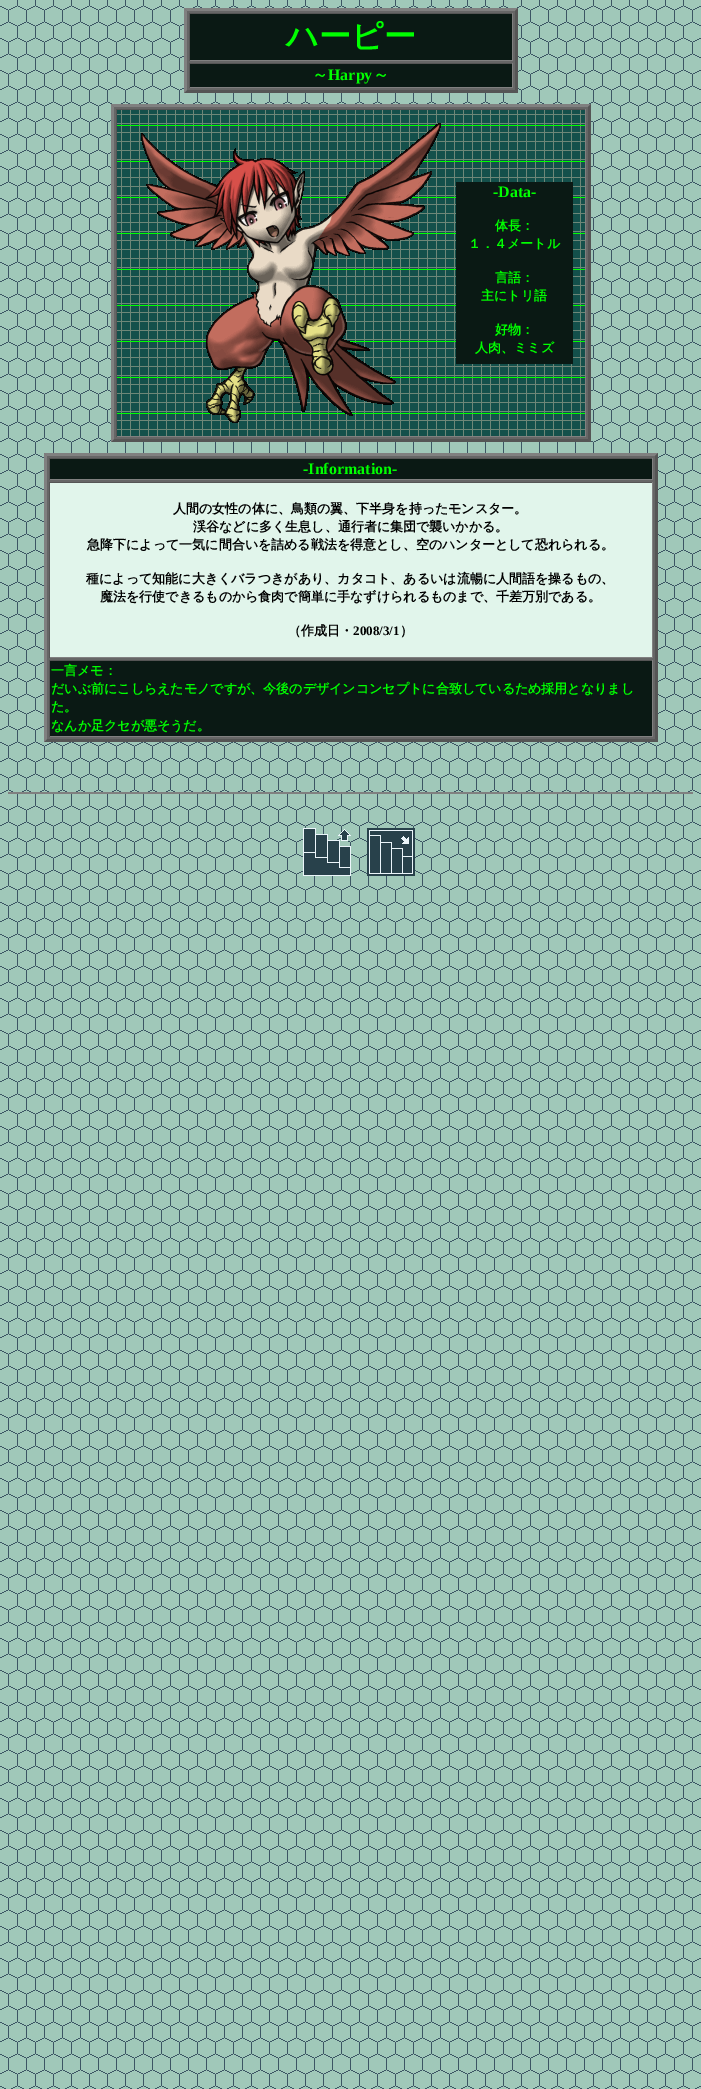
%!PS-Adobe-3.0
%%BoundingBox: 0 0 701 2089
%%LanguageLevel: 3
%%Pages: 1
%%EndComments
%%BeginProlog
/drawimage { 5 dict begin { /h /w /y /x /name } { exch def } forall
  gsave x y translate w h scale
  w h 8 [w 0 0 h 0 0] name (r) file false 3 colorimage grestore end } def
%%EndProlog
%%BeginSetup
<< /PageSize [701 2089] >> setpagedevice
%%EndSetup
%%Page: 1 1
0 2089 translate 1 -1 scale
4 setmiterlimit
1 setgray
0 0 701 2089 rectfill
(images/1.raw) 0 0 701 2089 drawimage
0.4 setgray
184 8 334 85 rectfill
0.502 setgray
newpath 184 8 moveto 518 8 lineto 515 11 lineto 187 11 lineto closepath fill
0.333 setgray
newpath 518 8 moveto 518 93 lineto 515 90 lineto 515 11 lineto closepath fill
newpath 518 93 moveto 184 93 lineto 187 90 lineto 515 90 lineto closepath fill
0.502 setgray
newpath 184 93 moveto 184 8 lineto 187 11 lineto 187 90 lineto closepath fill
0.039 0.098 0.078 setrgbcolor
190 14 322 46 rectfill
0.333 setgray
189 13 324 1 rectfill
0.502 setgray
512 13 1 48 rectfill
189 60 324 1 rectfill
0.333 setgray
189 13 1 48 rectfill
0.039 0.098 0.078 setrgbcolor
190 64 322 23 rectfill
0.333 setgray
189 63 324 1 rectfill
0.502 setgray
512 63 1 25 rectfill
189 87 324 1 rectfill
0.333 setgray
189 63 1 25 rectfill
0.4 setgray
111 104 480 338 rectfill
0.502 setgray
newpath 111 104 moveto 591 104 lineto 588 107 lineto 114 107 lineto closepath fill
0.333 setgray
newpath 591 104 moveto 591 442 lineto 588 439 lineto 588 107 lineto closepath fill
newpath 591 442 moveto 111 442 lineto 114 439 lineto 588 439 lineto closepath fill
0.502 setgray
newpath 111 442 moveto 111 104 lineto 114 107 lineto 114 439 lineto closepath fill
(images/2.raw) 117 110 468 326 drawimage
0.333 setgray
116 109 470 1 rectfill
0.502 setgray
585 109 1 328 rectfill
116 436 470 1 rectfill
0.333 setgray
116 109 1 328 rectfill
(images/3.raw) 141 123 300 300 drawimage
0.039 0.098 0.078 setrgbcolor
456 182 117 182 rectfill
0.4 setgray
44 453 614 289 rectfill
0.502 setgray
newpath 44 453 moveto 658 453 lineto 655 456 lineto 47 456 lineto closepath fill
0.333 setgray
newpath 658 453 moveto 658 742 lineto 655 739 lineto 655 456 lineto closepath fill
newpath 658 742 moveto 44 742 lineto 47 739 lineto 655 739 lineto closepath fill
0.502 setgray
newpath 44 742 moveto 44 453 lineto 47 456 lineto 47 739 lineto closepath fill
0.039 0.098 0.078 setrgbcolor
50 459 602 20 rectfill
0.333 setgray
49 458 604 1 rectfill
0.502 setgray
652 458 1 22 rectfill
49 479 604 1 rectfill
0.333 setgray
49 458 1 22 rectfill
0.882 0.961 0.922 setrgbcolor
50 483 602 174 rectfill
0.333 setgray
49 482 604 1 rectfill
0.502 setgray
652 482 1 176 rectfill
49 657 604 1 rectfill
0.333 setgray
49 482 1 176 rectfill
0.039 0.098 0.078 setrgbcolor
50 661 602 75 rectfill
0.333 setgray
49 660 604 1 rectfill
0.502 setgray
652 660 1 77 rectfill
49 736 604 1 rectfill
0.333 setgray
49 660 1 77 rectfill
0.502 setgray
8 792 685 2 rectfill
(images/4.raw) 303 828 48 48 drawimage
(images/5.raw) 367 828 48 48 drawimage
/WenQuanYiZenHei-Bold [32 0 0 -32 0 0] selectfont
0 1 0 setrgbcolor
286 47 moveto (ハーピー) show
/WenQuanYiZenHei-Bold [16 0 0 -16 0 0] selectfont
312 80 moveto (～) show
/LiberationSerif-Bold [16 0 0 -16 0 0] selectfont
328 80 moveto (Harpy) show
/WenQuanYiZenHei-Bold [16 0 0 -16 0 0] selectfont
373 80 moveto (～) show
/LiberationSerif-Bold [16 0 0 -16 0 0] selectfont
493 197 moveto (-Data-) show
/WenQuanYiZenHei-Bold [13 0 0 -13 0 0] selectfont
495 230 moveto (体長：) show
468 248 moveto (１．４メートル) show
495 282 moveto (言語：) show
481 300 moveto (主にトリ語) show
495 334 moveto (好物：) show
475 352 moveto (人肉、ミミズ) show
/LiberationSerif-Bold [16 0 0 -16 0 0] selectfont
303 474 moveto (-Information-) show
/WenQuanYiZenHei-Bold [13 0 0 -13 0 0] selectfont
0 setgray
173 513 moveto (人間の女性の体に、鳥類の翼、下半身を持ったモンスター。) show
193 531 moveto (渓谷などに多く生息し、通行者に集団で襲いかかる。) show
87 549 moveto (急降下によって一気に間合いを詰める戦法を得意とし、空のハンターとして恐れられる。) show
86 583 moveto (種によって知能に大きくバラつきがあり、カタコト、あるいは流暢に人間語を操るもの、) show
100 601 moveto (魔法を行使できるものから食肉で簡単に手なずけられるものまで、千差万別である。) show
288 635 moveto (（作成日・) show
/LiberationSerif-Bold [13 0 0 -13 0 0] selectfont
353 635 moveto (2008/3/1) show
/WenQuanYiZenHei-Bold [13 0 0 -13 0 0] selectfont
400 635 moveto (）) show
0 1 0 setrgbcolor
51 675 moveto (一言メモ：) show
51 693 moveto (だいぶ前にこしらえたモノですが、今後のデザインコンセプトに合致しているため採用となりまし) show
51 711 moveto (た。) show
51 730 moveto (なんか足クセが悪そうだ。) show
showpage
%%EOF
